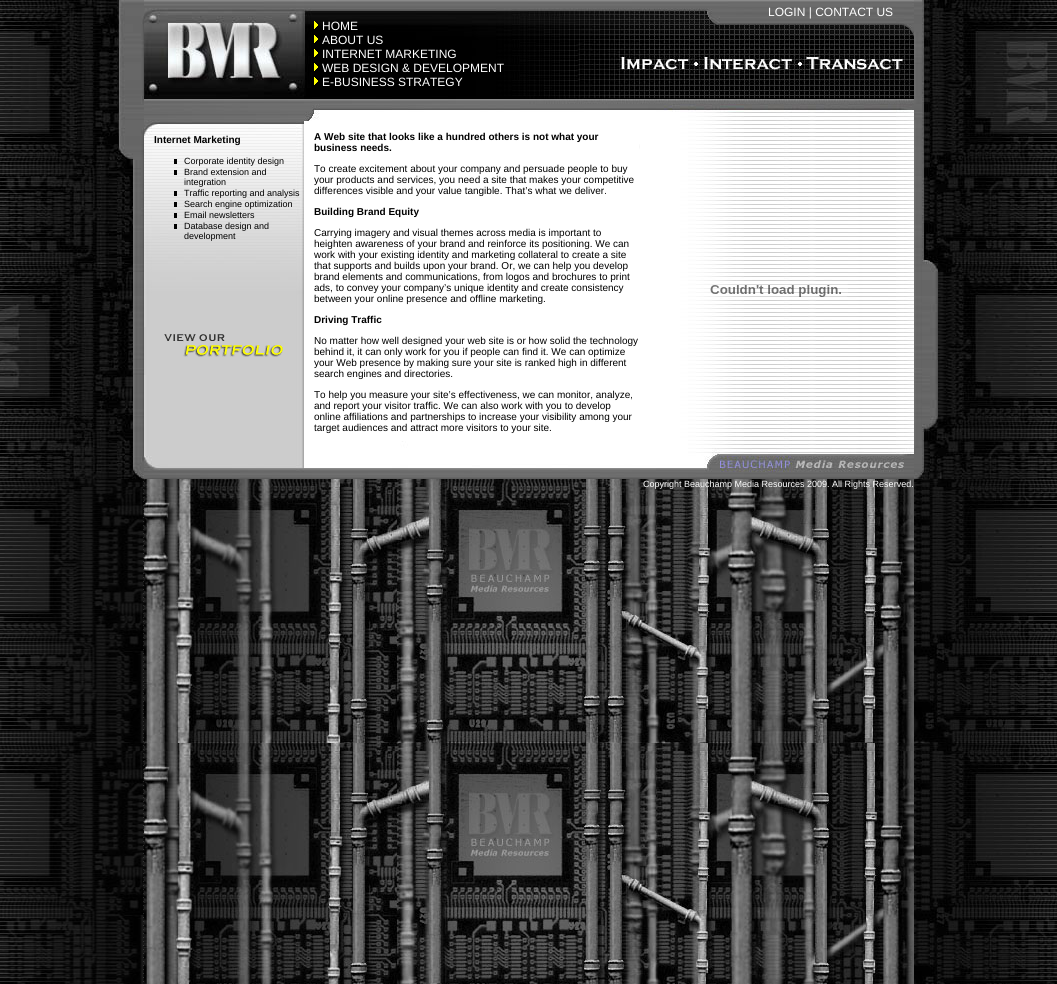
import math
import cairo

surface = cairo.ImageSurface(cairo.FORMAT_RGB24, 1057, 984)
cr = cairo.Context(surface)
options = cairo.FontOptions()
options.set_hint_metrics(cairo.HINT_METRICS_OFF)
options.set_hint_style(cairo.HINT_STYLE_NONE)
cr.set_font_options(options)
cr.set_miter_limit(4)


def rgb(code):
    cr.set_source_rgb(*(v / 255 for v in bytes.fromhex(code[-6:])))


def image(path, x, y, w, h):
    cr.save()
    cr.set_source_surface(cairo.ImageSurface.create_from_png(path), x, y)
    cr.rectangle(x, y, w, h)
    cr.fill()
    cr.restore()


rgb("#ffffff")
cr.paint()
image("img/1.png", 0, 0, 144, 479)
image("img/2.png", 144, 0, 770, 479)
image("img/3.png", 144, 8, 160, 90)
image("img/4.png", 314, 21, 4, 8)
image("img/5.png", 314, 35, 4, 8)
image("img/5.png", 314, 49, 4, 8)
image("img/5.png", 314, 63, 4, 8)
image("img/5.png", 314, 77, 4, 8)
for x, y, w, h, color in [
    (174, 159, 3, 5, "#000000"),
    (174, 170, 3, 5, "#000000"),
    (174, 191, 3, 5, "#000000"),
    (174, 202, 3, 5, "#000000"),
    (174, 213, 3, 5, "#000000"),
    (174, 224, 3, 5, "#000000"),
]:
    rgb(color)
    cr.rectangle(x, y, w, h)
    cr.fill()
image("img/6.png", 144, 327, 139, 48)
rgb("#ffffff")
cr.rectangle(304, 121, 335, 320)
cr.fill()
image("img/7.png", 710, 284, 138, 13)
image("img/8.png", 914, 0, 143, 479)
image("img/9.png", 0, 479, 144, 505)
image("img/10.png", 144, 479, 770, 505)
image("img/11.png", 914, 479, 143, 505)
cr.select_font_face("Liberation Sans")
cr.set_font_size(12)
for x, y, s in [
    (322, 30, "HOME"),
    (322, 44, "ABOUT US"),
    (322, 58, "INTERNET MARKETING"),
    (322, 72, "WEB DESIGN & DEVELOPMENT"),
    (322, 86, "E-BUSINESS STRATEGY"),
    (768, 16, "LOGIN | CONTACT US"),
]:
    cr.move_to(x, y)
    cr.show_text(s)
cr.select_font_face("Liberation Sans", cairo.FONT_SLANT_NORMAL, cairo.FONT_WEIGHT_BOLD)
cr.set_font_size(10)
rgb("#000000")
cr.move_to(154, 143)
cr.show_text("Internet Marketing")
cr.select_font_face("Liberation Sans")
cr.set_font_size(9)
for x, y, s in [
    (184, 164, "Corporate identity design"),
    (184, 175, "Brand extension and"),
    (184, 185, "integration"),
    (184, 196, "Traffic reporting and analysis"),
    (184, 207, "Search engine optimization"),
    (184, 218, "Email newsletters"),
    (184, 229, "Database design and"),
    (184, 239, "development"),
]:
    cr.move_to(x, y)
    cr.show_text(s)
cr.select_font_face("Liberation Sans", cairo.FONT_SLANT_NORMAL, cairo.FONT_WEIGHT_BOLD)
cr.set_font_size(10)
cr.move_to(314, 140)
cr.show_text("A Web site that looks like a hundred others is not what your")
cr.move_to(314, 151)
cr.show_text("business needs.")
cr.select_font_face("Liberation Sans")
for x, y, s in [
    (314, 172, "To create excitement about your company and persuade people to buy"),
    (314, 183, "your products and services, you need a site that makes your competitive"),
    (314, 194, "differences visible and your value tangible. That’s what we deliver."),
]:
    cr.move_to(x, y)
    cr.show_text(s)
cr.select_font_face("Liberation Sans", cairo.FONT_SLANT_NORMAL, cairo.FONT_WEIGHT_BOLD)
cr.move_to(314, 215)
cr.show_text("Building Brand Equity")
cr.select_font_face("Liberation Sans")
for x, y, s in [
    (314, 236, "Carrying imagery and visual themes across media is important to"),
    (314, 247, "heighten awareness of your brand and reinforce its positioning. We can"),
    (314, 258, "work with your existing identity and marketing collateral to create a site"),
    (314, 269, "that supports and builds upon your brand. Or, we can help you develop"),
    (314, 280, "brand elements and communications, from logos and brochures to print"),
    (314, 291, "ads, to convey your company’s unique identity and create consistency"),
    (314, 302, "between your online presence and offline marketing."),
]:
    cr.move_to(x, y)
    cr.show_text(s)
cr.select_font_face("Liberation Sans", cairo.FONT_SLANT_NORMAL, cairo.FONT_WEIGHT_BOLD)
cr.move_to(314, 323)
cr.show_text("Driving Traffic")
cr.select_font_face("Liberation Sans")
for x, y, s in [
    (314, 344, "No matter how well designed your web site is or how solid the technology"),
    (314, 355, "behind it, it can only work for you if people can find it. We can optimize"),
    (314, 366, "your Web presence by making sure your site is ranked high in different"),
    (314, 377, "search engines and directories."),
    (314, 398, "To help you measure your site’s effectiveness, we can monitor, analyze,"),
    (314, 409, "and report your visitor traffic. We can also work with you to develop"),
    (314, 420, "online affiliations and partnerships to increase your visibility among your"),
    (314, 431, "target audiences and attract more visitors to your site."),
]:
    cr.move_to(x, y)
    cr.show_text(s)
cr.set_font_size(9)
rgb("#ffffff")
cr.move_to(643, 487)
cr.show_text("Copyright Beauchamp Media Resources 2009. All Rights Reserved.")
surface.write_to_png("page.png")
